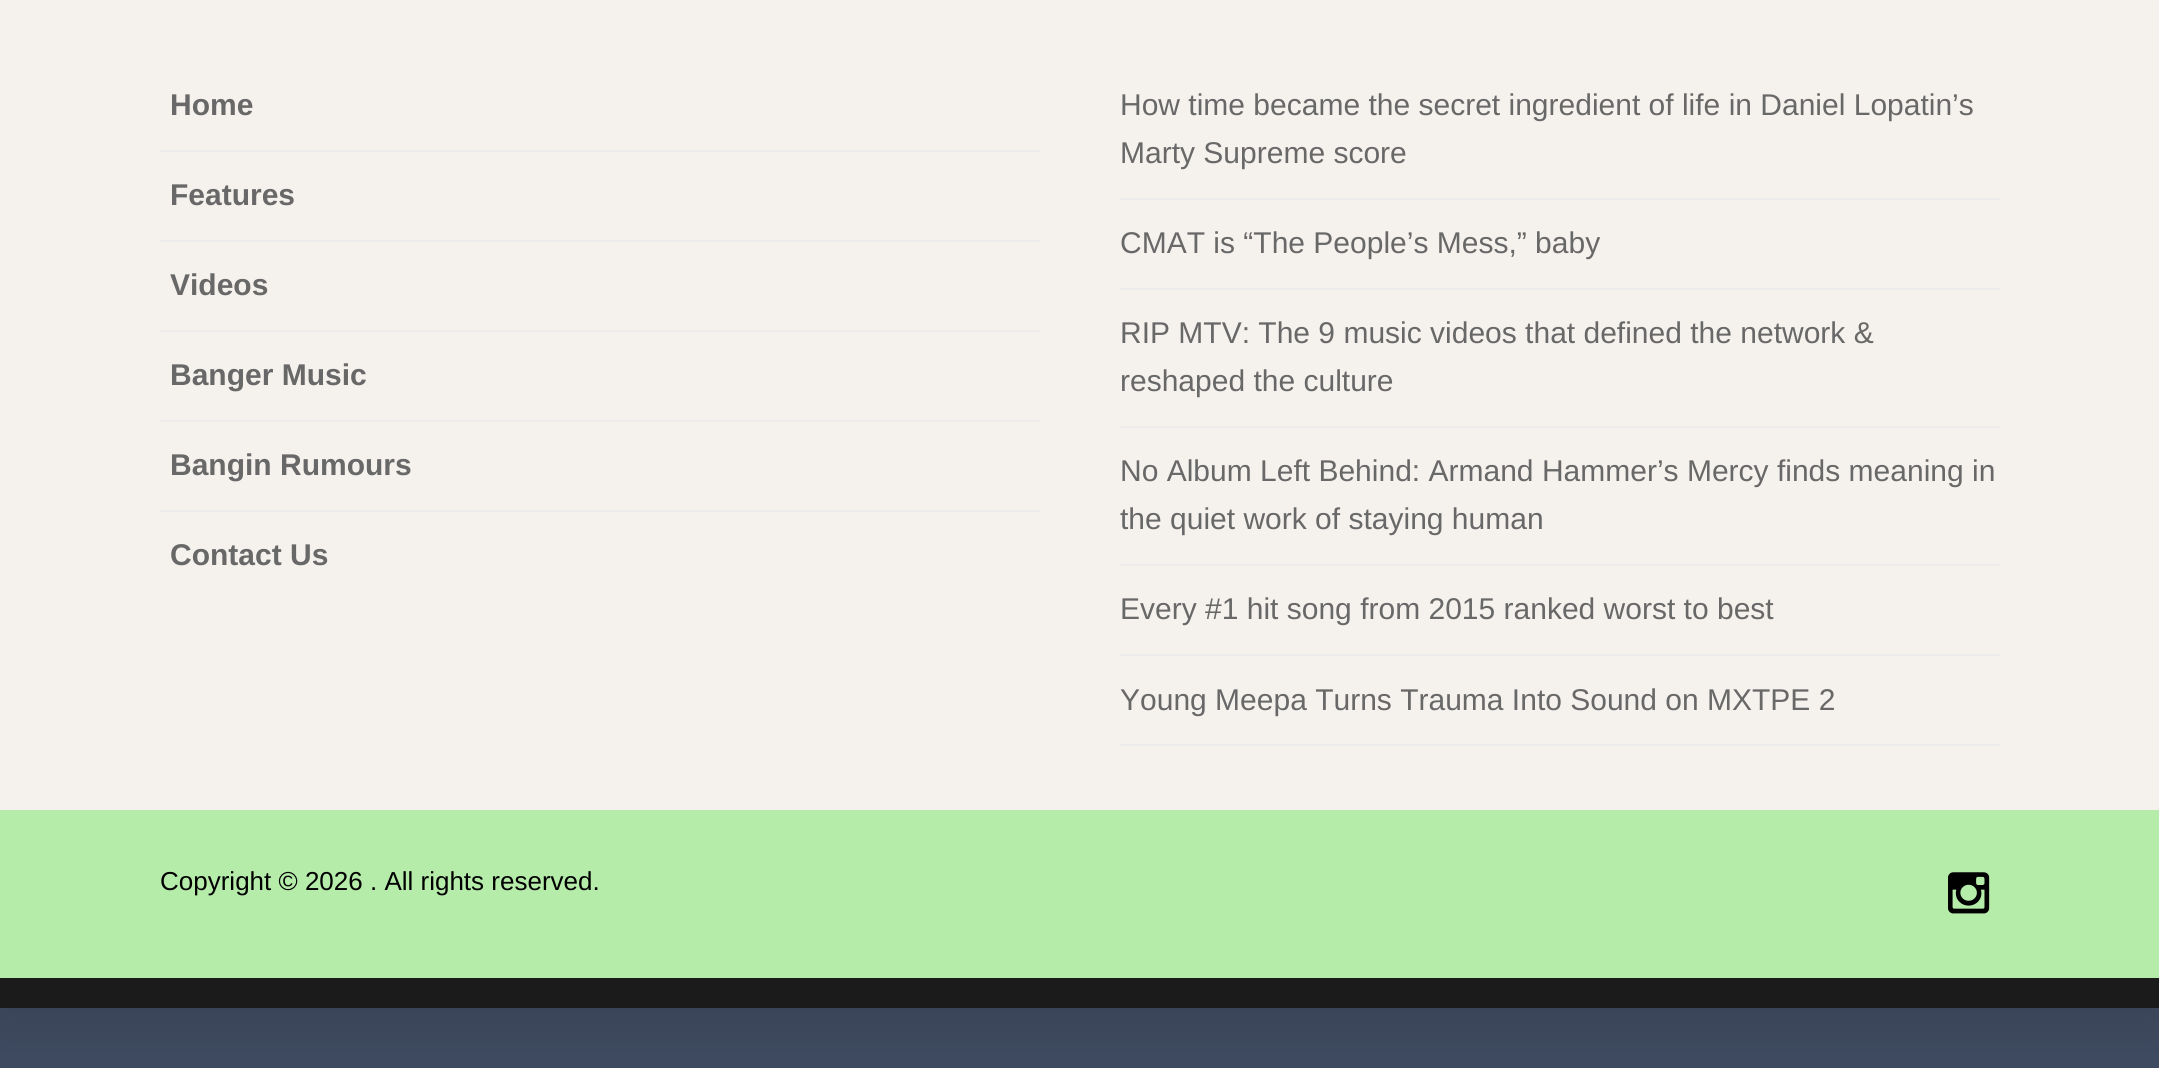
import math
import cairo

surface = cairo.ImageSurface(cairo.FORMAT_RGB24, 2159, 1068)
cr = cairo.Context(surface)
options = cairo.FontOptions()
options.set_hint_metrics(cairo.HINT_METRICS_OFF)
options.set_hint_style(cairo.HINT_STYLE_NONE)
cr.set_font_options(options)
cr.set_miter_limit(4)


def rgb(code):
    cr.set_source_rgb(*(v / 255 for v in bytes.fromhex(code[-6:])))


def rrect(x, y, w, h, r):
    cr.new_sub_path()
    for i, (u, v) in enumerate([(x + w - r, y + h - r), (x + r, y + h - r), (x + r, y + r), (x + w - r, y + r)]):
        cr.arc(u, v, r, i * math.pi / 2, (i + 1) * math.pi / 2)
    cr.close_path()


def soft_shadow(x, y, w, h, r, blur, alpha):
    cr.push_group_with_content(cairo.CONTENT_ALPHA)
    cr.set_operator(cairo.OPERATOR_SOURCE)
    for i in range(15, -16, -2):
        e = blur * i / 6
        if min(w, h) + 2 * e > 0:
            cr.set_source_rgba(0, 0, 0, alpha * math.erfc((i - 1) / 8.5) / 2)
            rrect(x - e, y - e, w + 2 * e, h + 2 * e, max(0, min(r + e + blur * .6, min(w, h) / 2 + e)))
            cr.fill()
    cr.mask(cr.pop_group())


def image(path, x, y, w, h):
    cr.save()
    cr.set_source_surface(cairo.ImageSurface.create_from_png(path), x, y)
    cr.rectangle(x, y, w, h)
    cr.fill()
    cr.restore()


rgb("#3e4a5f")
cr.paint()
rgb("#000000")
soft_shadow(0, -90, 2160, 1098, 0, 30, 0.15)
for x, y, w, h, color in [
    (0, 0, 2159, 810, "#f5f2ed"),
    (160, 150, 880, 2, "#ededed"),
    (160, 240, 880, 2, "#ededed"),
    (160, 330, 880, 2, "#ededed"),
    (160, 420, 880, 2, "#ededed"),
    (160, 510, 880, 2, "#ededed"),
    (1120, 198, 880, 2, "#ececec"),
    (1120, 288, 880, 2, "#ececec"),
    (1120, 426, 880, 2, "#ececec"),
    (1120, 564, 880, 2, "#ececec"),
    (1120, 654, 880, 2, "#ececec"),
    (1120, 744, 880, 2, "#ececec"),
    (0, 810, 2159, 168, "#b6ecaa"),
    (0, 978, 2159, 30, "#1b1b1b"),
]:
    rgb(color)
    cr.rectangle(x, y, w, h)
    cr.fill()
image("img/1.png", 1948, 872, 42, 42)
cr.select_font_face("Liberation Sans", cairo.FONT_SLANT_NORMAL, cairo.FONT_WEIGHT_BOLD)
cr.set_font_size(30)
rgb("#686868")
for x, y, s in [
    (170, 115, "Home"),
    (170, 205, "Features"),
    (170, 295, "Videos"),
    (170, 385, "Banger Music"),
    (170, 475, "Bangin Rumours"),
    (170, 565, "Contact Us"),
]:
    cr.move_to(x, y)
    cr.show_text(s)
cr.select_font_face("Liberation Sans")
for x, y, s in [
    (1120, 115, "How time became the secret ingredient of life in Daniel Lopatin’s"),
    (1120, 163, "Marty Supreme score"),
    (1120, 253, "CMAT is “The People’s Mess,” baby"),
    (1120, 343, "RIP MTV: The 9 music videos that defined the network &"),
    (1120, 391, "reshaped the culture"),
    (1120, 481, "No Album Left Behind: Armand Hammer’s Mercy finds meaning in"),
    (1120, 529, "the quiet work of staying human"),
    (1120, 619, "Every #1 hit song from 2015 ranked worst to best"),
    (1120, 710, "Young Meepa Turns Trauma Into Sound on MXTPE 2"),
]:
    cr.move_to(x, y)
    cr.show_text(s)
cr.set_font_size(26)
rgb("#000000")
cr.move_to(160, 890)
cr.show_text("Copyright © 2026 . All rights reserved.")
surface.write_to_png("page.png")
